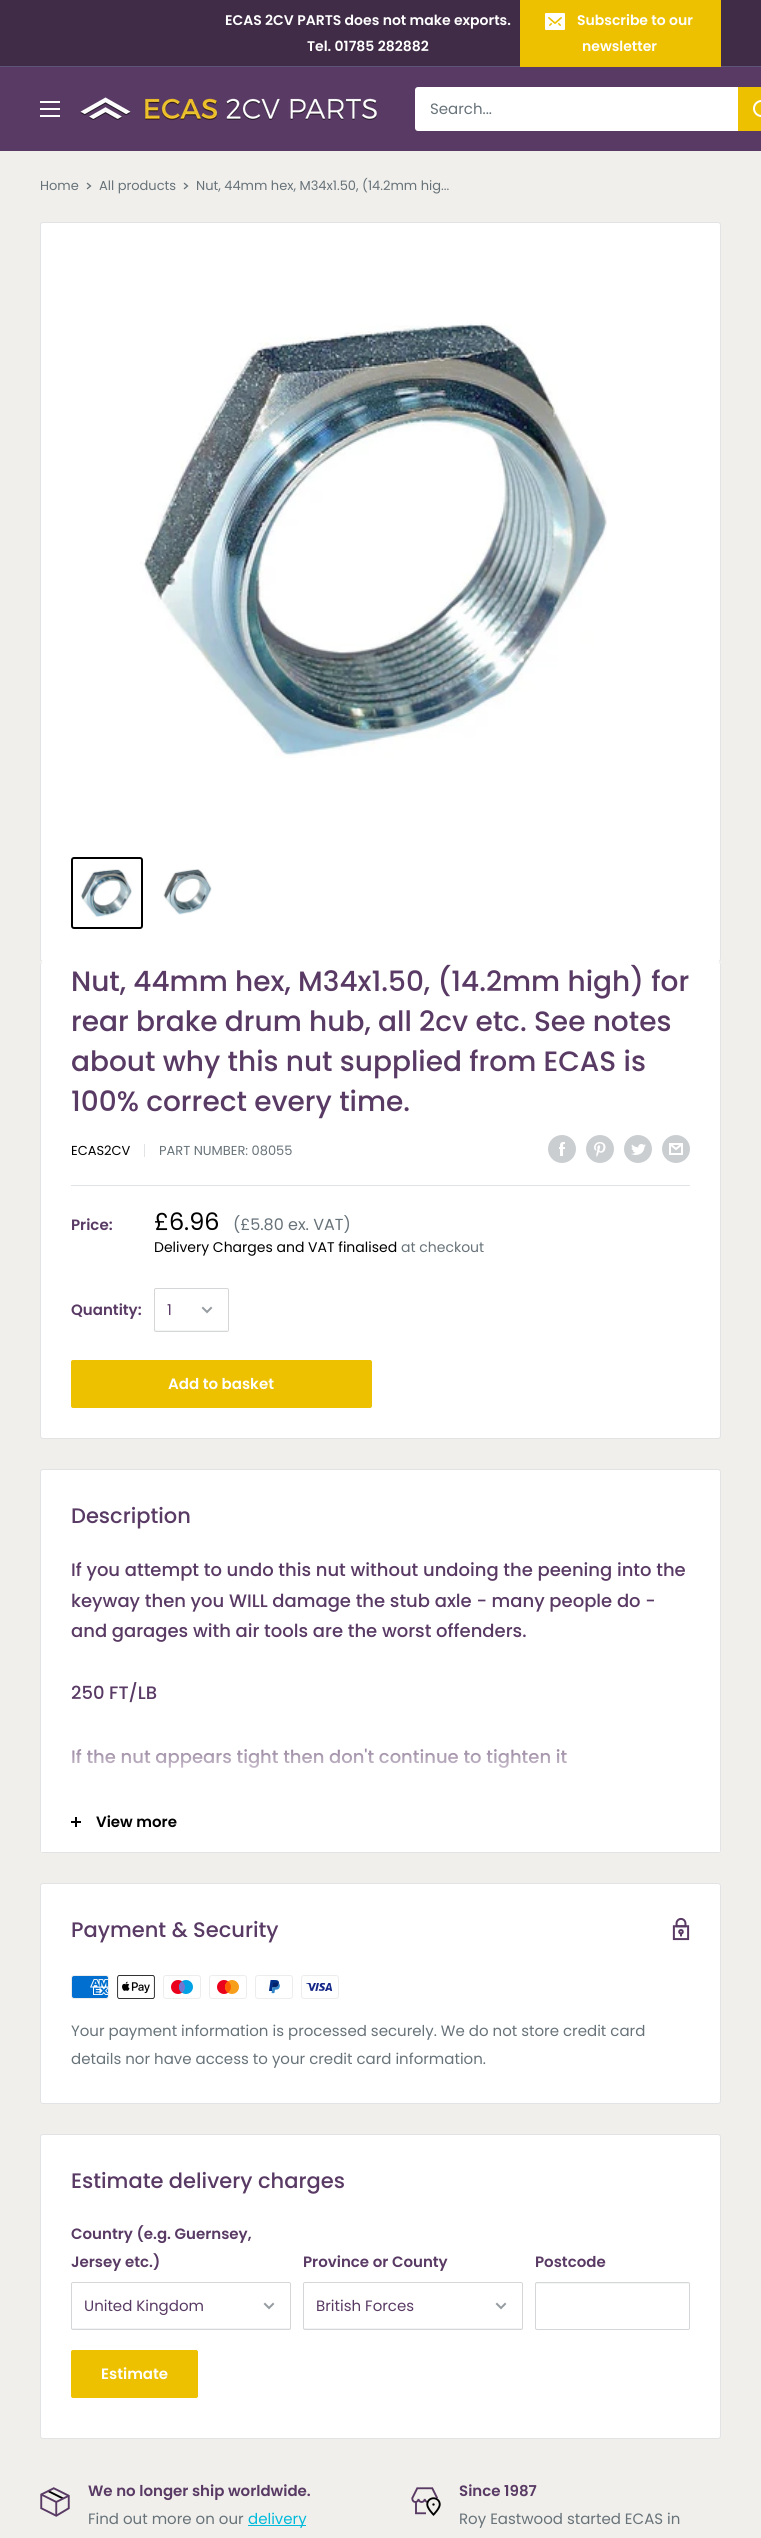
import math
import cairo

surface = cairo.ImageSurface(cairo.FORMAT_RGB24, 761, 2538)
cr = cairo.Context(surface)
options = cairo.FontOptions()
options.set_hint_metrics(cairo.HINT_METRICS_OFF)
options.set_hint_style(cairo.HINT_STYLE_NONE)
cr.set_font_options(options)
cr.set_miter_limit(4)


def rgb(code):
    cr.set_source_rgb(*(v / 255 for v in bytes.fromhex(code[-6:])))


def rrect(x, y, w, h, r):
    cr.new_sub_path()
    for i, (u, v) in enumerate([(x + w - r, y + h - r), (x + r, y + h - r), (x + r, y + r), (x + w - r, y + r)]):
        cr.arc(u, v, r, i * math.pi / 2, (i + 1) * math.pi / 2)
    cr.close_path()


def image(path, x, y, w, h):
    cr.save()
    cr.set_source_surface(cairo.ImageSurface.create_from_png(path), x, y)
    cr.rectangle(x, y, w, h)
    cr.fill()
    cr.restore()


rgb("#f0efeb")
cr.paint()
for x, y, w, h, color in [
    (0, 0, 761, 66, "#402c47"),
    (0, 66, 761, 1, "#5e5379"),
    (520, 0, 201, 67, "#edc100"),
]:
    rgb(color)
    cr.rectangle(x, y, w, h)
    cr.fill()
image("img/1.png", 545, 13, 20, 17)
rgb("#593a64")
cr.rectangle(0, 67, 761, 84)
cr.fill()
image("img/2.png", 40, 101, 20, 16)
image("img/3.png", 80, 97, 297, 24)
rgb("#ffffff")
rrect(415, 87, 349, 44, 3)
cr.fill()
rgb("#edc100")
cr.rectangle(738, 87, 23, 44)
cr.fill()
cr.arc(761.5, 108.5, 7.5, 0, 2 * math.pi)
rgb("#ffffff")
cr.stroke()
cr.new_path()
cr.move_to(87.5, 183.5)
cr.line_to(90.5, 186)
cr.line_to(87.5, 188.5)
rgb("#677279")
cr.set_line_width(1.3)
cr.set_line_cap(cairo.LINE_CAP_SQUARE)
cr.stroke()
cr.new_path()
cr.move_to(184.5, 183.5)
cr.line_to(187.5, 186)
cr.line_to(184.5, 188.5)
cr.stroke()
rgb("#ffffff")
rrect(40.5, 222.5, 680, 739, 2.5)
cr.fill_preserve()
rgb("#e1e3e4")
cr.set_line_width(1)
cr.set_line_cap(cairo.LINE_CAP_BUTT)
cr.stroke()
image("img/4.png", 140, 323, 467, 435)
rrect(72, 858, 70, 70, 2)
rgb("#000000")
cr.set_line_width(2)
cr.stroke()
image("img/5.png", 80, 869, 52, 48)
image("img/6.png", 163, 869, 49, 46)
rgb("#ffffff")
cr.new_path()
cr.move_to(43, 961)
cr.curve_to(41, 961, 40, 963, 40, 965)
cr.curve_to(40, 963, 41, 962, 43, 962)
cr.line_to(718, 962)
cr.curve_to(720, 962, 721, 963, 721, 965)
cr.curve_to(721, 963, 720, 961, 718, 961)
cr.close_path()
cr.fill()
rrect(40, 962, 681, 477, 3)
cr.fill()
rgb("#e1e3e4")
cr.set_fill_rule(cairo.FILL_RULE_EVEN_ODD)
cr.new_path()
cr.move_to(43, 962)
cr.line_to(718, 962)
cr.curve_to(720, 962, 721, 963, 721, 965)
cr.line_to(721, 1436)
cr.curve_to(721, 1438, 720, 1439, 718, 1439)
cr.line_to(43, 1439)
cr.curve_to(41, 1439, 40, 1438, 40, 1436)
cr.line_to(40, 965)
cr.curve_to(40, 963, 41, 962, 43, 962)
cr.close_path()
cr.move_to(43, 962)
cr.line_to(718, 962)
cr.curve_to(719, 962, 720, 963, 720, 965)
cr.line_to(720, 1436)
cr.curve_to(720, 1437, 719, 1438, 718, 1438)
cr.line_to(43, 1438)
cr.curve_to(42, 1438, 41, 1437, 41, 1436)
cr.line_to(41, 965)
cr.curve_to(41, 963, 42, 962, 43, 962)
cr.close_path()
cr.fill()
cr.rectangle(144, 1144, 1, 13)
cr.fill()
image("img/7.png", 548, 1135, 28, 28)
image("img/8.png", 586, 1135, 28, 28)
image("img/9.png", 624, 1135, 28, 28)
image("img/10.png", 662, 1135, 28, 28)
cr.rectangle(71, 1185, 619, 1)
cr.fill()
rgb("#f2f3f3")
cr.set_fill_rule(cairo.FILL_RULE_WINDING)
cr.new_path()
cr.move_to(155, 1329)
cr.curve_to(155, 1330, 155, 1331, 156, 1331)
cr.line_to(227, 1331)
cr.line_to(228, 1329)
cr.line_to(227, 1330)
cr.line_to(161, 1330)
cr.curve_to(159, 1330, 156, 1331, 155, 1329)
cr.close_path()
cr.fill()
rrect(154.5, 1288.5, 74, 43, 1.5)
rgb("#d4d6d8")
cr.set_line_width(1)
cr.stroke()
cr.new_path()
cr.move_to(211, 1308)
cr.line_to(207, 1312)
cr.line_to(203, 1308)
rgb("#959ca1")
cr.set_line_width(2)
cr.set_line_cap(cairo.LINE_CAP_SQUARE)
cr.stroke()
rgb("#edc100")
rrect(71, 1360, 301, 48, 2)
cr.fill()
rgb("#ffffff")
rrect(40.5, 1469.5, 680, 383, 2.5)
cr.fill_preserve()
rgb("#e1e3e4")
cr.set_line_width(1)
cr.set_line_cap(cairo.LINE_CAP_BUTT)
cr.stroke()
for x, y, w, h, color in [
    (41, 1850, 679, 2, "#ffffff"),
    (75, 1817, 2, 10, "#000000"),
    (71, 1821, 10, 2, "#000000"),
]:
    rgb(color)
    cr.rectangle(x, y, w, h)
    cr.fill()
rgb("#ffffff")
rrect(40.5, 1883.5, 680, 220, 2.5)
cr.fill_preserve()
rgb("#e1e3e4")
cr.stroke()
image("img/11.png", 672, 1917, 18, 24)
image("img/12.png", 71, 1975, 38, 24)
image("img/13.png", 117, 1975, 38, 24)
image("img/14.png", 163, 1975, 38, 24)
image("img/15.png", 209, 1975, 38, 24)
image("img/16.png", 255, 1975, 38, 24)
image("img/17.png", 301, 1975, 38, 24)
rgb("#ffffff")
rrect(40.5, 2134.5, 680, 304, 2.5)
cr.fill_preserve()
rgb("#e1e3e4")
cr.stroke()
rgb("#f2f3f3")
cr.new_path()
cr.move_to(72, 2327)
cr.curve_to(72, 2328, 72, 2329, 73, 2329)
cr.line_to(289, 2329)
cr.line_to(290, 2329)
cr.line_to(290, 2327)
cr.curve_to(290, 2328, 290, 2328, 289, 2328)
cr.line_to(72, 2328)
cr.close_path()
cr.fill()
rrect(71.5, 2282.5, 219, 47, 1.5)
rgb("#d4d6d8")
cr.stroke()
cr.new_path()
cr.move_to(273, 2304)
cr.line_to(269, 2308)
cr.line_to(265, 2304)
rgb("#959ca1")
cr.set_line_width(2)
cr.set_line_cap(cairo.LINE_CAP_SQUARE)
cr.stroke()
rgb("#f2f3f3")
cr.new_path()
cr.move_to(304, 2327)
cr.line_to(304, 2329)
cr.line_to(305, 2329)
cr.line_to(521, 2329)
cr.curve_to(522, 2329, 522, 2328, 522, 2327)
cr.curve_to(522, 2328, 522, 2328, 521, 2328)
cr.line_to(304, 2328)
cr.close_path()
cr.fill()
rrect(303.5, 2282.5, 219, 47, 1.5)
rgb("#d4d6d8")
cr.set_line_width(1)
cr.set_line_cap(cairo.LINE_CAP_BUTT)
cr.stroke()
cr.new_path()
cr.move_to(505, 2304)
cr.line_to(501, 2308)
cr.line_to(497, 2304)
rgb("#959ca1")
cr.set_line_width(2)
cr.set_line_cap(cairo.LINE_CAP_SQUARE)
cr.stroke()
rgb("#f4f5f5")
cr.new_path()
cr.move_to(537, 2284)
cr.line_to(688, 2284)
cr.curve_to(689, 2284, 689, 2284, 689, 2285)
cr.curve_to(689, 2284, 689, 2283, 688, 2283)
cr.line_to(536, 2283)
cr.line_to(536, 2285)
cr.curve_to(536, 2284, 536, 2284, 537, 2284)
cr.close_path()
cr.fill()
rrect(535.5, 2282.5, 154, 47, 1.5)
rgb("#d4d6d8")
cr.set_line_width(1)
cr.set_line_cap(cairo.LINE_CAP_BUTT)
cr.stroke()
rgb("#edc100")
rrect(71, 2350, 127, 48, 2)
cr.fill()
image("img/18.png", 40, 2487, 30, 30)
rgb("#00badb")
cr.rectangle(248, 2525, 58, 1)
cr.fill()
image("img/19.png", 411, 2487, 30, 29)
cr.select_font_face("Poppins SemiBold")
cr.set_font_size(14)
rgb("#ffffff")
for x, y, s in [
    (225, 25, "ECAS 2CV PARTS does not make exports."),
    (307, 51, "Tel. 01785 282882"),
    (577, 25, "Subscribe to our"),
    (582, 51, "newsletter"),
]:
    cr.move_to(x, y)
    cr.show_text(s)
cr.select_font_face("Poppins")
cr.set_font_size(15)
rgb("#677279")
cr.move_to(430, 114)
cr.show_text("Search...")
cr.set_font_size(13)
for x, y, s in [
    (40, 190, "Home"),
    (99, 190, "All products"),
    (196, 190, "Nut, 44mm hex, M34x1.50, (14.2mm hig..."),
]:
    cr.move_to(x, y)
    cr.show_text(s)
cr.select_font_face("Poppins Medium")
cr.set_font_size(28)
rgb("#593a64")
for x, y, s in [
    (71, 991, "Nut, 44mm hex, M34x1.50, (14.2mm high) for"),
    (71, 1031, "rear brake drum hub, all 2cv etc. See notes"),
    (71, 1071, "about why this nut supplied from ECAS is"),
    (71, 1111, "100% correct every time."),
]:
    cr.move_to(x, y)
    cr.show_text(s)
cr.select_font_face("Poppins")
cr.set_font_size(13)
rgb("#000000")
cr.move_to(71, 1155)
cr.show_text("ECAS2CV")
rgb("#677279")
cr.move_to(159, 1155)
cr.show_text("PART NUMBER: 08055")
cr.select_font_face("Poppins SemiBold")
cr.set_font_size(15)
rgb("#593a64")
cr.move_to(71, 1230)
cr.show_text("Price:")
cr.select_font_face("Poppins")
cr.set_font_size(24)
rgb("#000000")
cr.move_to(154, 1230)
cr.show_text("£6.96")
cr.set_font_size(16)
rgb("#677279")
cr.move_to(233, 1230)
cr.show_text("(£5.80 ex. VAT)")
cr.set_font_size(14)
rgb("#000000")
cr.move_to(154, 1252)
cr.show_text("Delivery Charges and VAT finalised")
rgb("#677279")
cr.move_to(401, 1252)
cr.show_text("at checkout")
cr.select_font_face("Poppins SemiBold")
cr.set_font_size(15)
rgb("#593a64")
cr.move_to(71, 1315)
cr.show_text("Quantity:")
cr.select_font_face("Poppins")
cr.move_to(167, 1315)
cr.show_text("1")
cr.select_font_face("Poppins SemiBold")
rgb("#ffffff")
cr.move_to(168, 1389)
cr.show_text("Add to basket")
cr.select_font_face("Poppins Medium")
cr.set_font_size(21)
rgb("#593a64")
cr.move_to(71, 1523)
cr.show_text("Description")
cr.set_font_size(18)
for x, y, s in [
    (71, 1576, "If you attempt to undo this nut without undoing the peening into the"),
    (71, 1607, "keyway then you WILL damage the stub axle - many people do -"),
    (71, 1637, "and garages with air tools are the worst offenders."),
    (71, 1699, "250 FT/LB"),
    (71, 1763, "If the nut appears tight then don't continue to tighten it"),
]:
    cr.move_to(x, y)
    cr.show_text(s)
gradient = cairo.LinearGradient(381, 1742, 381, 1792)
gradient.add_color_stop_rgba(0, 1, 1, 1, 0)
gradient.add_color_stop_rgba(0.15, 1, 1, 1, 0.4)
gradient.add_color_stop_rgba(1, 1, 1, 1, 1)
cr.set_source(gradient)
cr.rectangle(72, 1748, 495, 20)
cr.fill()
cr.select_font_face("Poppins SemiBold")
cr.set_font_size(15)
rgb("#000000")
cr.move_to(96, 1827)
cr.show_text("View more")
cr.select_font_face("Poppins Medium")
cr.set_font_size(21)
rgb("#593a64")
cr.move_to(71, 1937)
cr.show_text("Payment & Security")
cr.select_font_face("Poppins")
cr.set_font_size(15)
rgb("#677279")
cr.move_to(71, 2036)
cr.show_text("Your payment information is processed securely. We do not store credit card")
cr.move_to(71, 2064)
cr.show_text("details nor have access to your credit card information.")
cr.select_font_face("Poppins Medium")
cr.set_font_size(21)
rgb("#593a64")
cr.move_to(71, 2188)
cr.show_text("Estimate delivery charges")
cr.select_font_face("Poppins SemiBold")
cr.set_font_size(15)
cr.move_to(71, 2239)
cr.show_text("Country (e.g. Guernsey,")
cr.move_to(71, 2267)
cr.show_text("Jersey etc.)")
cr.select_font_face("Poppins")
cr.move_to(84, 2311)
cr.show_text("United Kingdom")
cr.select_font_face("Poppins SemiBold")
cr.move_to(303, 2267)
cr.show_text("Province or County")
cr.select_font_face("Poppins")
cr.move_to(316, 2311)
cr.show_text("British Forces")
cr.select_font_face("Poppins SemiBold")
cr.move_to(535, 2267)
cr.show_text("Postcode")
rgb("#ffffff")
cr.move_to(101, 2379)
cr.show_text("Estimate")
rgb("#593a64")
cr.move_to(88, 2496)
cr.show_text("We no longer ship worldwide.")
cr.select_font_face("Poppins")
rgb("#677279")
cr.move_to(88, 2524)
cr.show_text("Find out more on our")
rgb("#00badb")
cr.move_to(248, 2524)
cr.show_text("delivery")
cr.select_font_face("Poppins SemiBold")
rgb("#593a64")
cr.move_to(459, 2496)
cr.show_text("Since 1987")
cr.select_font_face("Poppins")
rgb("#677279")
cr.move_to(459, 2524)
cr.show_text("Roy Eastwood started ECAS in")
surface.write_to_png("page.png")
